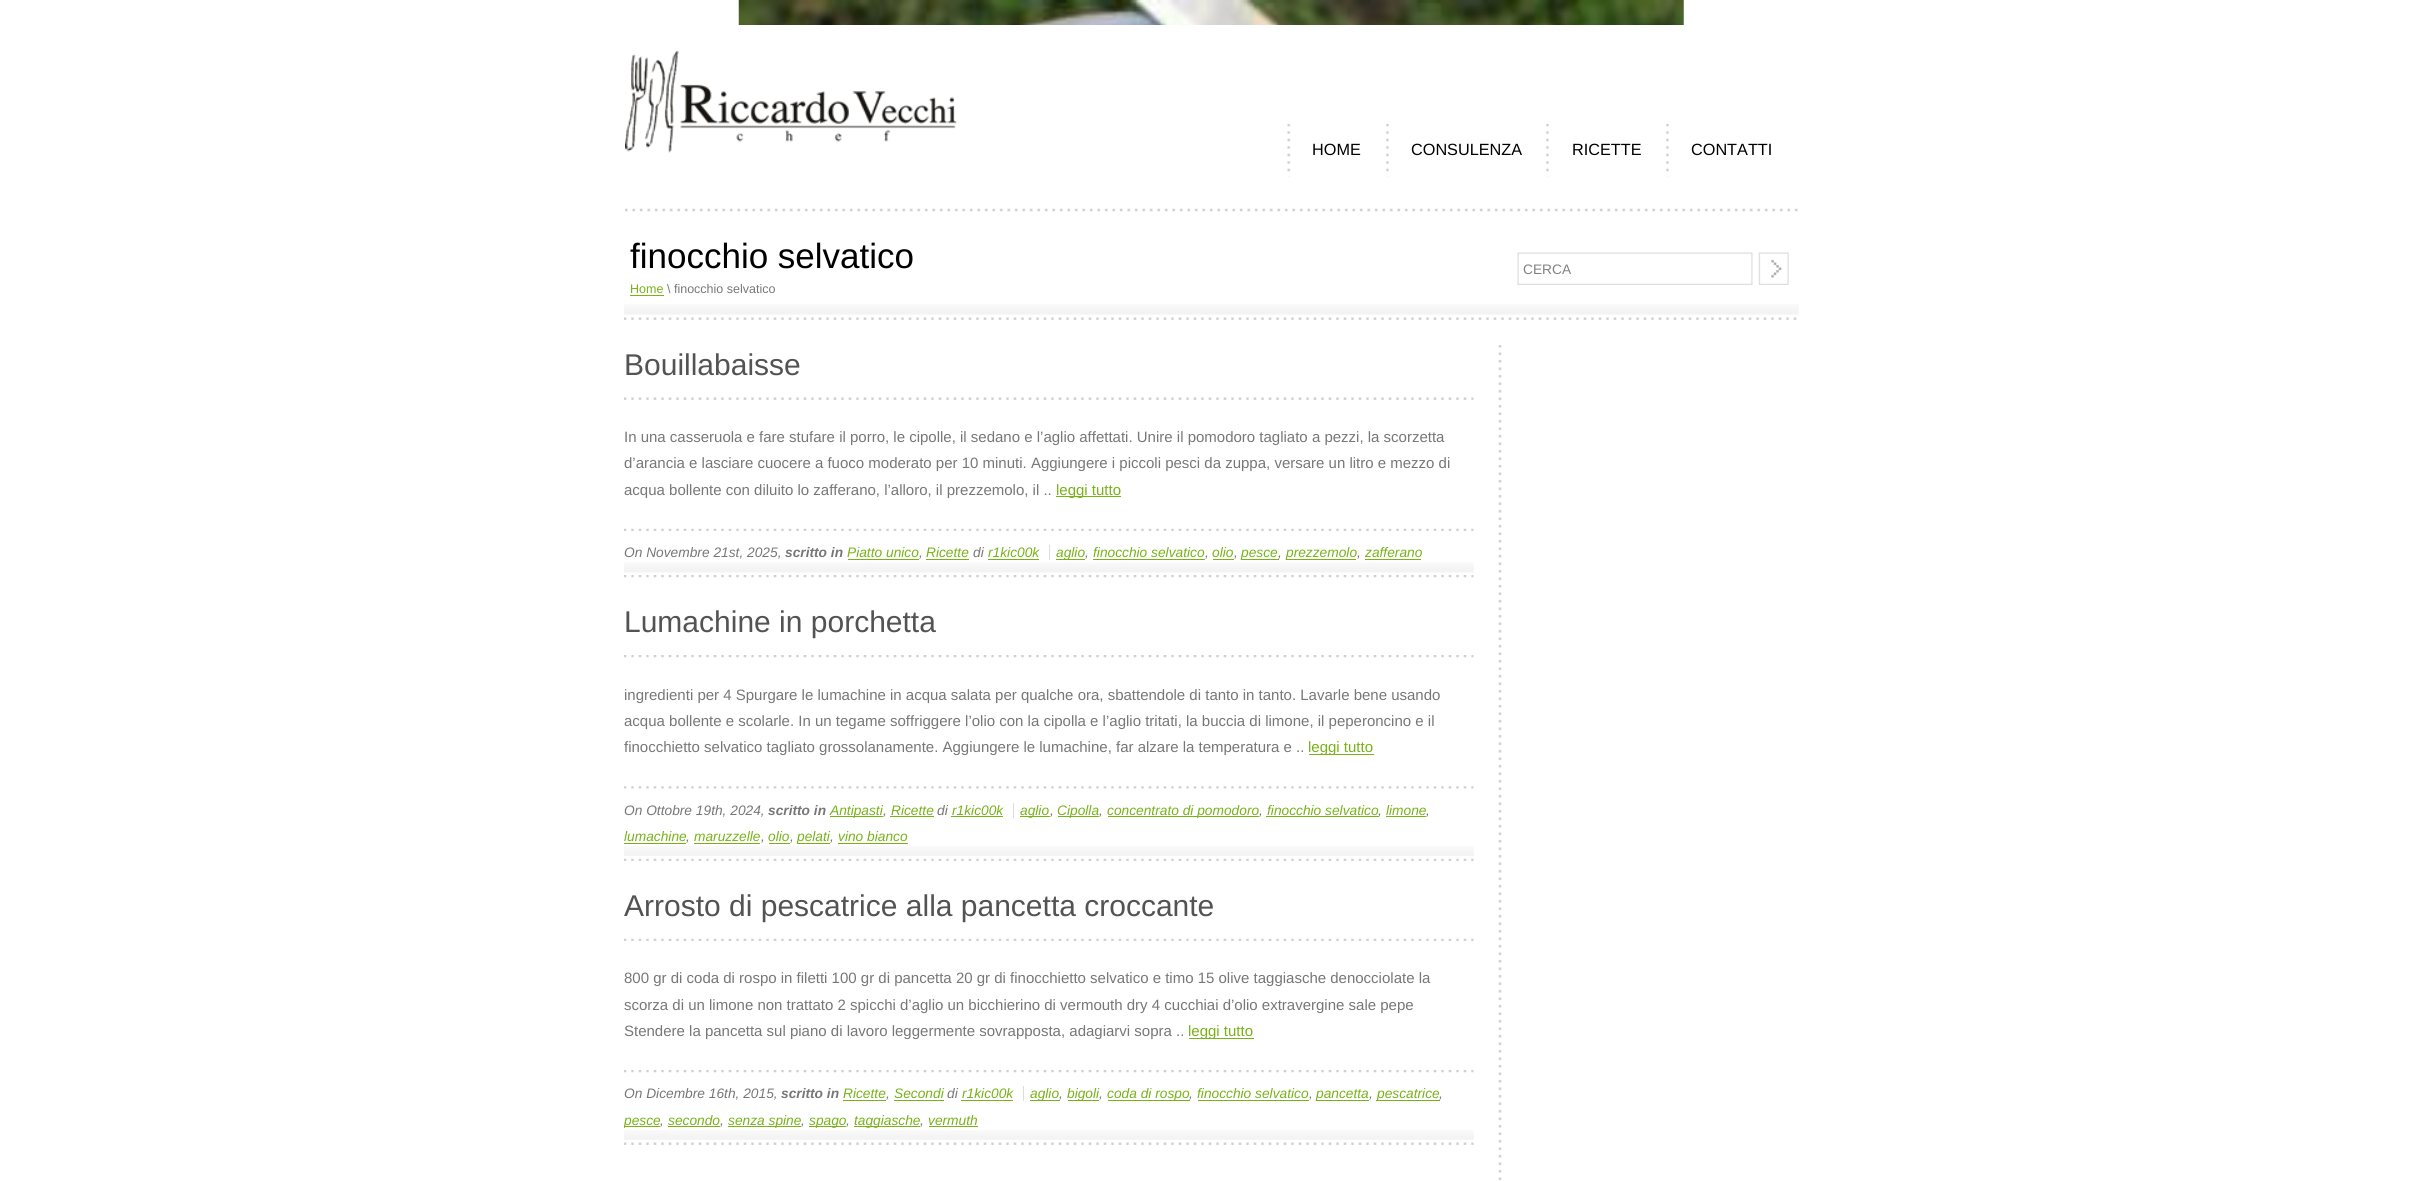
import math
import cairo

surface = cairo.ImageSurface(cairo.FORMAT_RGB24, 2422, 1181)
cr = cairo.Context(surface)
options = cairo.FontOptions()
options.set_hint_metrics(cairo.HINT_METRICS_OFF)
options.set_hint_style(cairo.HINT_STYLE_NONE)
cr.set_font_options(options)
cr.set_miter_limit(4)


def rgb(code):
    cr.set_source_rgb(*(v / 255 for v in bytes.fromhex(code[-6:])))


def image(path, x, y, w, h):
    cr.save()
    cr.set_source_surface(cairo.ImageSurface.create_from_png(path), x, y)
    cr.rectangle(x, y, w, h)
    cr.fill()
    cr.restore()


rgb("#ffffff")
cr.paint()
image("img/1.png", 738, 0, 946, 25)
image("img/2.png", 625, 208, 1173, 4)
image("img/3.png", 625, 51, 332, 102)
image("img/4.png", 1287, 124, 4, 53)
image("img/5.png", 1386, 124, 3, 53)
image("img/6.png", 1546, 124, 3, 53)
image("img/6.png", 1666, 124, 3, 53)
image("img/7.png", 624, 304, 1175, 11)
rgb("#78b218")
cr.rectangle(630, 295, 34, 1)
cr.fill()
image("img/8.png", 1517, 252, 272, 33)
image("img/9.png", 624, 317, 1173, 3)
image("img/10.png", 1498, 345, 4, 836)
image("img/11.png", 624, 397, 850, 3)
cr.rectangle(1056, 496, 65, 1)
cr.fill()
image("img/12.png", 624, 528, 850, 3)
image("img/13.png", 624, 562, 850, 11)
for x, y, w, h, color in [
    (848, 559, 71, 1, "#78b218"),
    (926, 559, 43, 1, "#78b218"),
    (988, 559, 51, 1, "#78b218"),
    (1049, 545, 1, 15, "#dddddd"),
    (1056, 559, 29, 1, "#78b218"),
    (1093, 559, 112, 1, "#78b218"),
    (1213, 559, 21, 1, "#78b218"),
    (1241, 559, 38, 1, "#78b218"),
    (1286, 559, 70, 1, "#78b218"),
    (1365, 559, 56, 1, "#78b218"),
]:
    rgb(color)
    cr.rectangle(x, y, w, h)
    cr.fill()
image("img/14.png", 624, 575, 850, 3)
image("img/14.png", 624, 655, 850, 3)
cr.rectangle(1309, 754, 65, 1)
cr.fill()
image("img/15.png", 624, 786, 850, 3)
image("img/16.png", 624, 846, 850, 10)
for x, y, w, h, color in [
    (830, 816, 53, 1, "#78b218"),
    (890, 816, 44, 1, "#78b218"),
    (951, 816, 52, 1, "#78b218"),
    (1013, 803, 1, 15, "#dddddd"),
    (1020, 816, 30, 1, "#78b218"),
    (1058, 816, 41, 1, "#78b218"),
    (1108, 816, 151, 1, "#78b218"),
    (1266, 816, 113, 1, "#78b218"),
    (1386, 816, 40, 1, "#78b218"),
    (624, 843, 62, 1, "#78b218"),
    (694, 843, 66, 1, "#78b218"),
    (769, 843, 21, 1, "#78b218"),
    (798, 843, 32, 1, "#78b218"),
    (838, 843, 70, 1, "#78b218"),
]:
    rgb(color)
    cr.rectangle(x, y, w, h)
    cr.fill()
image("img/12.png", 624, 858, 850, 3)
image("img/12.png", 624, 938, 850, 3)
cr.rectangle(1189, 1038, 65, 1)
cr.fill()
image("img/14.png", 624, 1070, 850, 3)
image("img/17.png", 624, 1130, 850, 10)
for x, y, w, h, color in [
    (843, 1100, 43, 1, "#78b218"),
    (894, 1100, 50, 1, "#78b218"),
    (961, 1100, 52, 1, "#78b218"),
    (1023, 1086, 1, 15, "#dddddd"),
    (1030, 1100, 30, 1, "#78b218"),
    (1068, 1100, 31, 1, "#78b218"),
    (1108, 1100, 82, 1, "#78b218"),
    (1198, 1100, 111, 1, "#78b218"),
    (1316, 1100, 53, 1, "#78b218"),
    (1376, 1100, 64, 1, "#78b218"),
    (624, 1126, 36, 1, "#78b218"),
    (668, 1126, 52, 1, "#78b218"),
    (728, 1126, 73, 1, "#78b218"),
    (809, 1126, 37, 1, "#78b218"),
    (854, 1126, 66, 1, "#78b218"),
    (929, 1126, 49, 1, "#78b218"),
]:
    rgb(color)
    cr.rectangle(x, y, w, h)
    cr.fill()
image("img/11.png", 624, 1142, 850, 3)
cr.select_font_face("Liberation Sans")
cr.set_font_size(16.25)
rgb("#000000")
for x, y, s in [
    (1312, 155, "HOME"),
    (1411, 155, "CONSULENZA"),
    (1572, 155, "RICETTE"),
    (1691, 155, "CONTATTI"),
]:
    cr.move_to(x, y)
    cr.show_text(s)
cr.set_font_size(35)
cr.move_to(630, 268)
cr.show_text("finocchio selvatico")
cr.set_font_size(12.5)
rgb("#78b218")
cr.move_to(630, 293)
cr.show_text("Home")
rgb("#777777")
cr.move_to(667, 293)
cr.show_text("\\ finocchio selvatico")
cr.set_font_size(13.75)
rgb("#818181")
cr.move_to(1523, 274)
cr.show_text("CERCA")
cr.set_font_size(30)
rgb("#535353")
cr.move_to(624, 375)
cr.show_text("Bouillabaisse")
cr.set_font_size(15)
rgb("#777777")
for x, y, s in [
    (624, 442, "In una casseruola e fare stufare il porro, le cipolle, il sedano e l’aglio affettati. Unire il pomodoro tagliato a pezzi, la scorzetta"),
    (624, 468, "d’arancia e lasciare cuocere a fuoco moderato per 10 minuti. Aggiungere i piccoli pesci da zuppa, versare un litro e mezzo di"),
    (624, 495, "acqua bollente con diluito lo zafferano, l’alloro, il prezzemolo, il .."),
]:
    cr.move_to(x, y)
    cr.show_text(s)
rgb("#78b218")
cr.move_to(1056, 495)
cr.show_text("leggi tutto")
cr.select_font_face("Liberation Sans", cairo.FONT_SLANT_ITALIC)
cr.set_font_size(13.75)
rgb("#777777")
cr.move_to(624, 557)
cr.show_text("On Novembre 21st, 2025,")
cr.select_font_face("Liberation Sans", cairo.FONT_SLANT_ITALIC, cairo.FONT_WEIGHT_BOLD)
cr.move_to(785, 557)
cr.show_text("scritto in")
cr.select_font_face("Liberation Sans", cairo.FONT_SLANT_ITALIC)
rgb("#78b218")
cr.move_to(847, 557)
cr.show_text("Piatto unico")
rgb("#777777")
cr.move_to(919, 557)
cr.show_text(",")
rgb("#78b218")
cr.move_to(926, 557)
cr.show_text("Ricette")
rgb("#777777")
cr.move_to(973, 557)
cr.show_text("di")
rgb("#78b218")
cr.move_to(988, 557)
cr.show_text("r1kic00k")
cr.move_to(1056, 557)
cr.show_text("aglio")
rgb("#777777")
cr.move_to(1085, 557)
cr.show_text(",")
rgb("#78b218")
cr.move_to(1093, 557)
cr.show_text("finocchio selvatico")
rgb("#777777")
cr.move_to(1205, 557)
cr.show_text(",")
rgb("#78b218")
cr.move_to(1212, 557)
cr.show_text("olio")
rgb("#777777")
cr.move_to(1234, 557)
cr.show_text(",")
rgb("#78b218")
cr.move_to(1241, 557)
cr.show_text("pesce")
rgb("#777777")
cr.move_to(1278, 557)
cr.show_text(",")
rgb("#78b218")
cr.move_to(1286, 557)
cr.show_text("prezzemolo")
rgb("#777777")
cr.move_to(1357, 557)
cr.show_text(",")
rgb("#78b218")
cr.move_to(1365, 557)
cr.show_text("zafferano")
cr.select_font_face("Liberation Sans")
cr.set_font_size(30)
rgb("#535353")
cr.move_to(624, 632)
cr.show_text("Lumachine in porchetta")
cr.set_font_size(15)
rgb("#777777")
for x, y, s in [
    (624, 700, "ingredienti per 4 Spurgare le lumachine in acqua salata per qualche ora, sbattendole di tanto in tanto. Lavarle bene usando"),
    (624, 726, "acqua bollente e scolarle. In un tegame soffriggere l’olio con la cipolla e l’aglio tritati, la buccia di limone, il peperoncino e il"),
    (624, 752, "finocchietto selvatico tagliato grossolanamente. Aggiungere le lumachine, far alzare la temperatura e .."),
]:
    cr.move_to(x, y)
    cr.show_text(s)
rgb("#78b218")
cr.move_to(1308, 752)
cr.show_text("leggi tutto")
cr.select_font_face("Liberation Sans", cairo.FONT_SLANT_ITALIC)
cr.set_font_size(13.75)
rgb("#777777")
cr.move_to(624, 815)
cr.show_text("On Ottobre 19th, 2024,")
cr.select_font_face("Liberation Sans", cairo.FONT_SLANT_ITALIC, cairo.FONT_WEIGHT_BOLD)
cr.move_to(768, 815)
cr.show_text("scritto in")
cr.select_font_face("Liberation Sans", cairo.FONT_SLANT_ITALIC)
rgb("#78b218")
cr.move_to(830, 815)
cr.show_text("Antipasti")
rgb("#777777")
cr.move_to(883, 815)
cr.show_text(",")
rgb("#78b218")
cr.move_to(891, 815)
cr.show_text("Ricette")
rgb("#777777")
cr.move_to(937, 815)
cr.show_text("di")
rgb("#78b218")
cr.move_to(952, 815)
cr.show_text("r1kic00k")
cr.move_to(1020, 815)
cr.show_text("aglio")
rgb("#777777")
cr.move_to(1050, 815)
cr.show_text(",")
rgb("#78b218")
cr.move_to(1057, 815)
cr.show_text("Cipolla")
rgb("#777777")
cr.move_to(1099, 815)
cr.show_text(",")
rgb("#78b218")
cr.move_to(1107, 815)
cr.show_text("concentrato di pomodoro")
rgb("#777777")
cr.move_to(1259, 815)
cr.show_text(",")
rgb("#78b218")
cr.move_to(1267, 815)
cr.show_text("finocchio selvatico")
rgb("#777777")
cr.move_to(1378, 815)
cr.show_text(",")
rgb("#78b218")
cr.move_to(1386, 815)
cr.show_text("limone")
rgb("#777777")
cr.move_to(1426, 815)
cr.show_text(",")
rgb("#78b218")
cr.move_to(624, 841)
cr.show_text("lumachine")
rgb("#777777")
cr.move_to(686, 841)
cr.show_text(",")
rgb("#78b218")
cr.move_to(694, 841)
cr.show_text("maruzzelle")
rgb("#777777")
cr.move_to(761, 841)
cr.show_text(",")
rgb("#78b218")
cr.move_to(768, 841)
cr.show_text("olio")
rgb("#777777")
cr.move_to(790, 841)
cr.show_text(",")
rgb("#78b218")
cr.move_to(797, 841)
cr.show_text("pelati")
rgb("#777777")
cr.move_to(830, 841)
cr.show_text(",")
rgb("#78b218")
cr.move_to(838, 841)
cr.show_text("vino bianco")
cr.select_font_face("Liberation Sans")
cr.set_font_size(30)
rgb("#535353")
cr.move_to(624, 916)
cr.show_text("Arrosto di pescatrice alla pancetta croccante")
cr.set_font_size(15)
rgb("#777777")
for x, y, s in [
    (624, 983, "800 gr di coda di rospo in filetti 100 gr di pancetta 20 gr di finocchietto selvatico e timo 15 olive taggiasche denocciolate la"),
    (624, 1010, "scorza di un limone non trattato 2 spicchi d’aglio un bicchierino di vermouth dry 4 cucchiai d’olio extravergine sale pepe"),
    (624, 1036, "Stendere la pancetta sul piano di lavoro leggermente sovrapposta, adagiarvi sopra .."),
]:
    cr.move_to(x, y)
    cr.show_text(s)
rgb("#78b218")
cr.move_to(1188, 1036)
cr.show_text("leggi tutto")
cr.select_font_face("Liberation Sans", cairo.FONT_SLANT_ITALIC)
cr.set_font_size(13.75)
rgb("#777777")
cr.move_to(624, 1098)
cr.show_text("On Dicembre 16th, 2015,")
cr.select_font_face("Liberation Sans", cairo.FONT_SLANT_ITALIC, cairo.FONT_WEIGHT_BOLD)
cr.move_to(781, 1098)
cr.show_text("scritto in")
cr.select_font_face("Liberation Sans", cairo.FONT_SLANT_ITALIC)
rgb("#78b218")
cr.move_to(843, 1098)
cr.show_text("Ricette")
rgb("#777777")
cr.move_to(886, 1098)
cr.show_text(",")
rgb("#78b218")
cr.move_to(894, 1098)
cr.show_text("Secondi")
rgb("#777777")
cr.move_to(947, 1098)
cr.show_text("di")
rgb("#78b218")
cr.move_to(962, 1098)
cr.show_text("r1kic00k")
cr.move_to(1030, 1098)
cr.show_text("aglio")
rgb("#777777")
cr.move_to(1059, 1098)
cr.show_text(",")
rgb("#78b218")
cr.move_to(1067, 1098)
cr.show_text("bigoli")
rgb("#777777")
cr.move_to(1099, 1098)
cr.show_text(",")
rgb("#78b218")
cr.move_to(1107, 1098)
cr.show_text("coda di rospo")
rgb("#777777")
cr.move_to(1189, 1098)
cr.show_text(",")
rgb("#78b218")
cr.move_to(1197, 1098)
cr.show_text("finocchio selvatico")
rgb("#777777")
cr.move_to(1309, 1098)
cr.show_text(",")
rgb("#78b218")
cr.move_to(1316, 1098)
cr.show_text("pancetta")
rgb("#777777")
cr.move_to(1369, 1098)
cr.show_text(",")
rgb("#78b218")
cr.move_to(1377, 1098)
cr.show_text("pescatrice")
rgb("#777777")
cr.move_to(1439, 1098)
cr.show_text(",")
cr.save()
cr.rectangle(624, 345, 887, 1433)
cr.clip()
rgb("#78b218")
cr.move_to(624, 1125)
cr.show_text("pesce")
cr.restore()
cr.move_to(660, 1125)
cr.show_text(",")
rgb("#78b218")
cr.move_to(668, 1125)
cr.show_text("secondo")
rgb("#777777")
cr.move_to(720, 1125)
cr.show_text(",")
rgb("#78b218")
cr.move_to(728, 1125)
cr.show_text("senza spine")
rgb("#777777")
cr.move_to(801, 1125)
cr.show_text(",")
rgb("#78b218")
cr.move_to(809, 1125)
cr.show_text("spago")
rgb("#777777")
cr.move_to(846, 1125)
cr.show_text(",")
rgb("#78b218")
cr.move_to(854, 1125)
cr.show_text("taggiasche")
rgb("#777777")
cr.move_to(920, 1125)
cr.show_text(",")
rgb("#78b218")
cr.move_to(928, 1125)
cr.show_text("vermuth")
surface.write_to_png("page.png")
